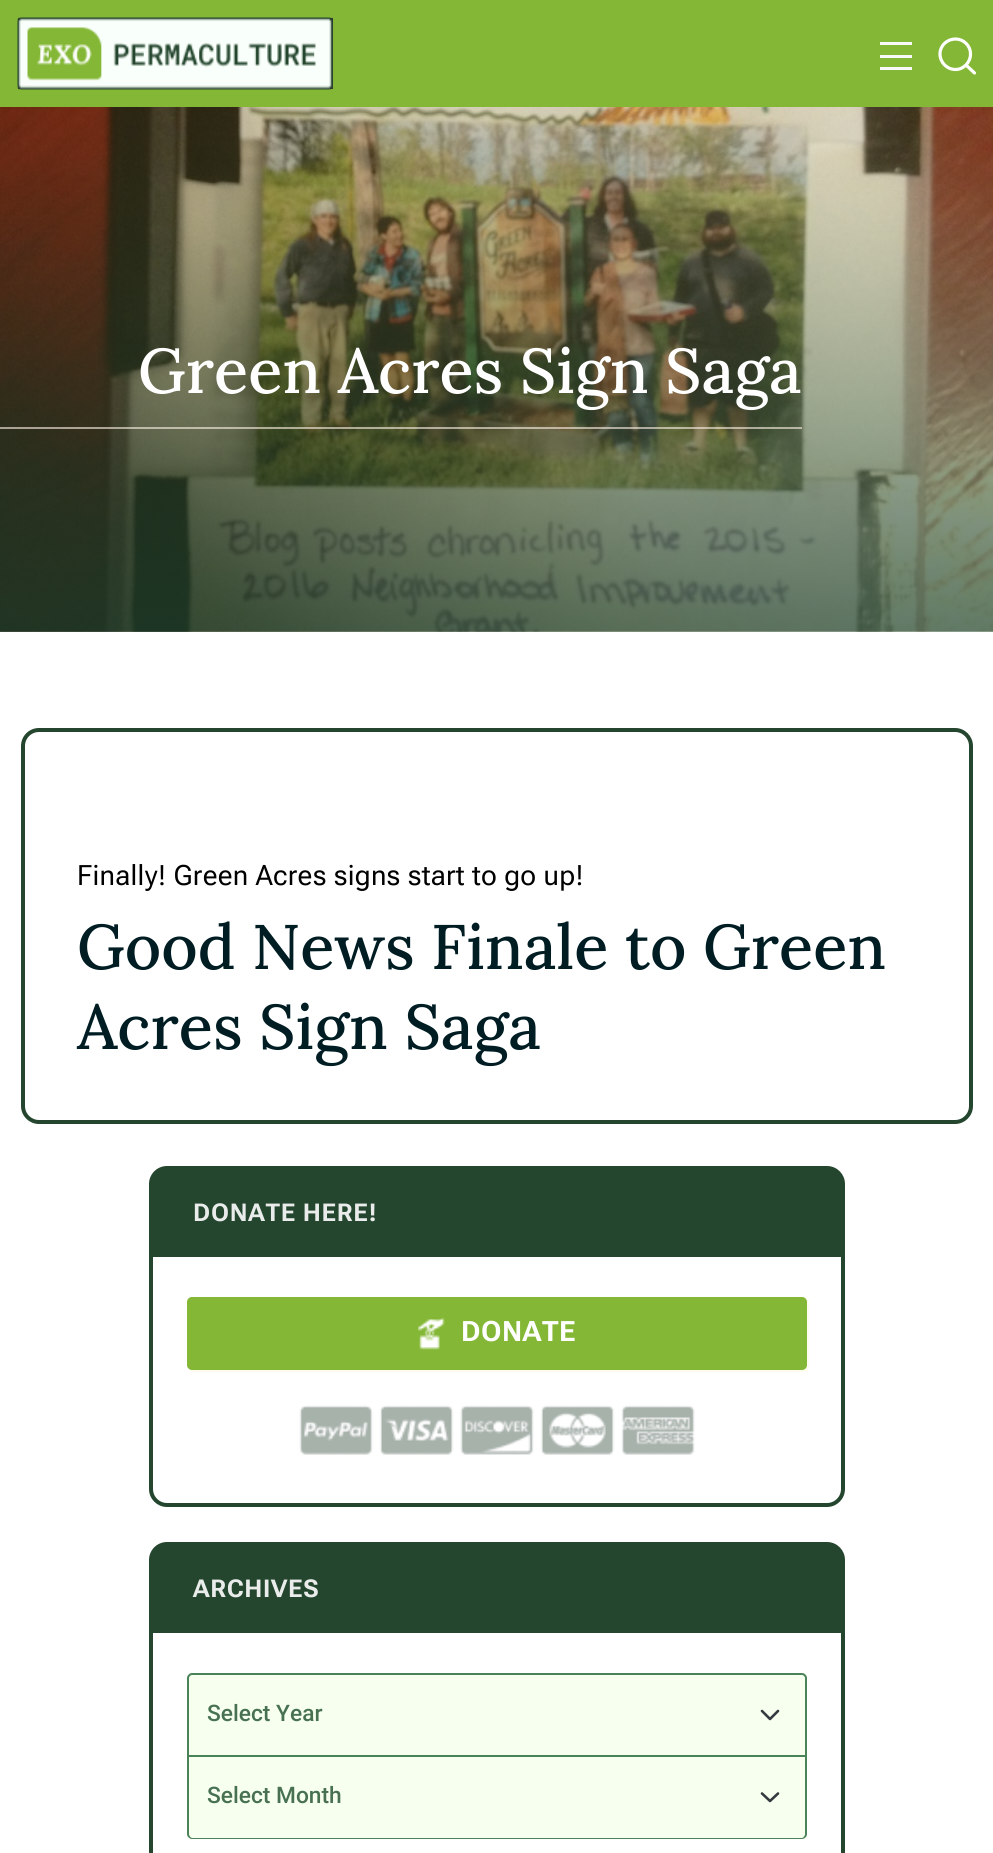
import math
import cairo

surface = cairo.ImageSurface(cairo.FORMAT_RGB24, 993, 1853)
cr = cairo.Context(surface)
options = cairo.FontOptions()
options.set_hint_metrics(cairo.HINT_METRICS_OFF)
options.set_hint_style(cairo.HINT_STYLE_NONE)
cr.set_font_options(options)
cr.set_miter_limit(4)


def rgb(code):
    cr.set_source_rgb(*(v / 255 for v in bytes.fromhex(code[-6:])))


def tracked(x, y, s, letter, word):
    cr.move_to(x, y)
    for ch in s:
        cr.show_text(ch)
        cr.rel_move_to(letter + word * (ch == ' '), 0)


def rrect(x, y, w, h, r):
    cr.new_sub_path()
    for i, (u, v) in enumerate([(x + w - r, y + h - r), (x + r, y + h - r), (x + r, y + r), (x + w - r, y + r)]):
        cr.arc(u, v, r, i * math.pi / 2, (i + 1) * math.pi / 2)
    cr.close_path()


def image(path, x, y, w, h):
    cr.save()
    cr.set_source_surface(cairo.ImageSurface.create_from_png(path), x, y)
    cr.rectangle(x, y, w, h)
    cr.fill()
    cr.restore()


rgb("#ffffff")
cr.paint()
rgb("#83b735")
cr.rectangle(0, 0, 993, 107)
cr.fill()
rgb("#343434")
cr.rectangle(18, 18, 315, 71)
cr.fill()
image("img/1.png", 17, 17, 316, 73)
for x, y, w, h, color in [
    (880, 42, 32, 3, "#f9f9f9"),
    (880, 55, 32, 3, "#f9f9f9"),
    (880, 67, 32, 3, "#f9f9f9"),
]:
    rgb(color)
    cr.rectangle(x, y, w, h)
    cr.fill()
cr.new_path()
cr.move_to(966, 65)
cr.line_to(974.5, 73)
cr.move_to(970.5, 54)
cr.curve_to(970.5, 62.5, 963.5, 69.5, 955.5, 69.5)
cr.curve_to(947, 69.5, 940, 62.5, 940, 54)
cr.curve_to(940, 45.5, 947, 39, 955.5, 39)
cr.curve_to(963.5, 39, 970.5, 45.5, 970.5, 54)
cr.close_path()
rgb("#ffffff")
cr.set_line_width(3.2)
cr.set_line_cap(cairo.LINE_CAP_ROUND)
cr.set_line_join(cairo.LINE_JOIN_ROUND)
cr.stroke()
image("img/2.png", 0, 107, 993, 525)
cr.set_source_rgba(1, 0.949, 0.91, 0.6)
cr.rectangle(0, 427, 802, 2)
cr.fill()
rrect(23, 730, 948, 392, 16)
rgb("#24462e")
cr.set_line_width(4)
cr.set_line_cap(cairo.LINE_CAP_BUTT)
cr.set_line_join(cairo.LINE_JOIN_MITER)
cr.stroke()
rrect(151, 1168, 692, 337, 16)
cr.stroke()
cr.new_path()
cr.move_to(166, 1169)
cr.line_to(828, 1169)
cr.curve_to(835.5, 1169, 842, 1175.5, 842, 1183)
cr.line_to(842, 1257)
cr.line_to(152, 1257)
cr.line_to(152, 1183)
cr.curve_to(152, 1175.5, 158.5, 1169, 166, 1169)
cr.close_path()
cr.fill()
rgb("#fffcee")
cr.new_path()
cr.move_to(190, 1369)
cr.curve_to(190, 1371, 192, 1372, 194, 1372)
cr.line_to(804, 1372)
cr.curve_to(807, 1372, 809, 1370, 809, 1367)
cr.line_to(809, 1304)
cr.curve_to(809, 1302, 808, 1300, 806, 1299)
cr.line_to(807, 1302)
cr.line_to(807, 1365)
cr.curve_to(807, 1368, 804, 1370, 802, 1370)
cr.line_to(192, 1370)
cr.close_path()
cr.fill()
rgb("#83b735")
rrect(187, 1297, 620, 73, 5)
cr.fill()
image("img/3.png", 418, 1317, 27, 33)
image("img/4.png", 299, 1405, 396, 50)
rrect(151, 1544, 692, 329, 16)
rgb("#24462e")
cr.stroke()
cr.new_path()
cr.move_to(166, 1545)
cr.line_to(828, 1545)
cr.curve_to(835.5, 1545, 842, 1551.5, 842, 1559)
cr.line_to(842, 1633)
cr.line_to(152, 1633)
cr.line_to(152, 1559)
cr.curve_to(152, 1551.5, 158.5, 1545, 166, 1545)
cr.close_path()
cr.fill()
rgb("#f7ffef")
cr.new_path()
cr.move_to(192, 1673)
cr.line_to(802, 1673)
cr.curve_to(805, 1673, 807, 1675, 807, 1678)
cr.line_to(807, 1757)
cr.line_to(187, 1757)
cr.line_to(187, 1678)
cr.curve_to(187, 1675, 189, 1673, 192, 1673)
cr.close_path()
cr.fill()
cr.new_path()
cr.move_to(762, 1711)
cr.line_to(770, 1719)
cr.line_to(778, 1711)
rgb("#343a40")
cr.set_line_width(2.6)
cr.set_line_cap(cairo.LINE_CAP_ROUND)
cr.set_line_join(cairo.LINE_JOIN_ROUND)
cr.stroke()
cr.new_path()
cr.move_to(192, 1674)
cr.line_to(802, 1674)
cr.curve_to(804, 1674, 806, 1676, 806, 1678)
cr.line_to(806, 1756)
cr.line_to(188, 1756)
cr.line_to(188, 1678)
cr.curve_to(188, 1676, 190, 1674, 192, 1674)
cr.close_path()
rgb("#4a8359")
cr.set_line_width(2)
cr.set_line_cap(cairo.LINE_CAP_BUTT)
cr.set_line_join(cairo.LINE_JOIN_MITER)
cr.stroke()
rgb("#f7ffef")
cr.new_path()
cr.move_to(187, 1757)
cr.line_to(807, 1757)
cr.line_to(807, 1834)
cr.curve_to(807, 1837, 805, 1839, 802, 1839)
cr.line_to(192, 1839)
cr.curve_to(189, 1839, 187, 1837, 187, 1834)
cr.close_path()
cr.fill()
cr.new_path()
cr.move_to(762, 1793.5)
cr.line_to(770, 1801)
cr.line_to(778, 1793.5)
rgb("#343a40")
cr.set_line_width(2.6)
cr.set_line_cap(cairo.LINE_CAP_ROUND)
cr.set_line_join(cairo.LINE_JOIN_ROUND)
cr.stroke()
rgb("#4a8359")
cr.set_fill_rule(cairo.FILL_RULE_EVEN_ODD)
cr.new_path()
cr.move_to(187, 1757)
cr.line_to(807, 1757)
cr.line_to(807, 1834)
cr.curve_to(807, 1837, 804, 1839, 802, 1839)
cr.line_to(192, 1839)
cr.curve_to(190, 1839, 187, 1837, 187, 1834)
cr.close_path()
cr.move_to(189, 1757)
cr.line_to(805, 1757)
cr.line_to(805, 1834)
cr.curve_to(805, 1836, 803, 1838, 802, 1838)
cr.line_to(192, 1838)
cr.curve_to(191, 1838, 189, 1836, 189, 1834)
cr.close_path()
cr.fill()
cr.select_font_face("Lora Medium")
cr.set_font_size(63)
rgb("#ffffff")
cr.move_to(138, 393)
cr.show_text("Green Acres Sign Saga")
cr.select_font_face("Roboto Flex")
cr.set_font_size(28)
rgb("#000000")
tracked(77, 885, "Finally! Green Acres signs start to go up!", 0.3, 0)
cr.select_font_face("Lora Medium")
cr.set_font_size(63)
rgb("#001d23")
cr.move_to(77, 969)
cr.show_text("Good News Finale to Green")
cr.move_to(77, 1049)
cr.show_text("Acres Sign Saga")
cr.select_font_face("Roboto Flex", cairo.FONT_SLANT_NORMAL, cairo.FONT_WEIGHT_BOLD)
cr.set_font_size(24.5)
rgb("#e9ecea")
tracked(193, 1221, "DONATE HERE!", 0.75, 0)
cr.select_font_face("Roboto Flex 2", cairo.FONT_SLANT_NORMAL, cairo.FONT_WEIGHT_BOLD)
cr.set_font_size(28)
rgb("#ffffff")
tracked(461, 1341, "DONATE", 0.5, 0)
cr.select_font_face("Roboto Flex", cairo.FONT_SLANT_NORMAL, cairo.FONT_WEIGHT_BOLD)
cr.set_font_size(24.5)
rgb("#e9ecea")
tracked(193, 1597, "ARCHIVES", 0.75, 0)
cr.select_font_face("Roboto Medium")
cr.set_font_size(22.75)
rgb("#487152")
cr.move_to(207, 1721)
cr.show_text("Select Year")
cr.move_to(207, 1803)
cr.show_text("Select Month")
surface.write_to_png("page.png")
